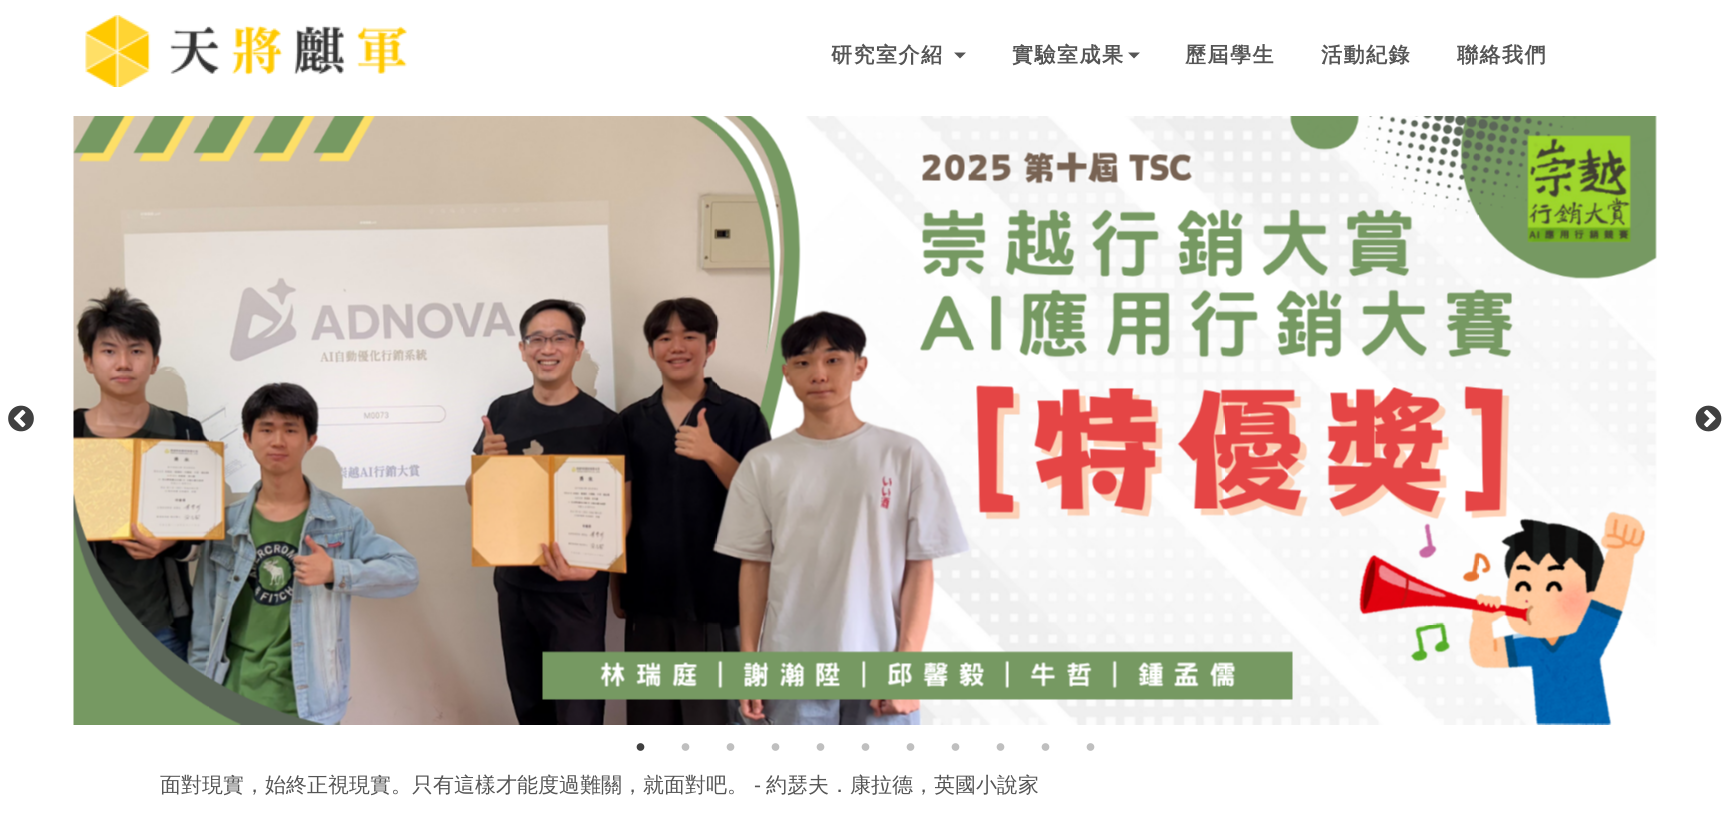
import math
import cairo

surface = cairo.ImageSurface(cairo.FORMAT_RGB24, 1729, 823)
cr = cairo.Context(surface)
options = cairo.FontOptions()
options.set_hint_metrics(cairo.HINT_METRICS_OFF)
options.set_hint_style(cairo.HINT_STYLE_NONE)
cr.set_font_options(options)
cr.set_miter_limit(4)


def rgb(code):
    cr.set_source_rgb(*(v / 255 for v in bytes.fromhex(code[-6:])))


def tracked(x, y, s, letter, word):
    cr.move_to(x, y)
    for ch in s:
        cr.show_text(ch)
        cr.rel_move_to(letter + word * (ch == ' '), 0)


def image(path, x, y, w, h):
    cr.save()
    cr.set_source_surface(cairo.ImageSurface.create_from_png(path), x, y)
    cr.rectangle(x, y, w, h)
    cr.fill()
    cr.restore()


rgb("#ffffff")
cr.paint()
image("img/1.png", 85, 15, 322, 72)
rgb("#555555")
cr.new_path()
cr.move_to(954, 52.5)
cr.line_to(966, 52.5)
cr.line_to(960, 58.5)
cr.close_path()
cr.fill()
cr.new_path()
cr.move_to(1128, 52.5)
cr.line_to(1140, 52.5)
cr.line_to(1134, 58.5)
cr.close_path()
cr.fill()
image("img/2.png", 8, 405, 26, 27)
image("img/3.png", 73, 116, 1584, 609)
image("img/4.png", 1695, 405, 27, 27)
image("img/5.png", 636, 743, 9, 8)
image("img/6.png", 681, 743, 9, 8)
image("img/6.png", 726, 743, 9, 8)
image("img/6.png", 771, 743, 9, 8)
image("img/6.png", 816, 743, 9, 8)
image("img/6.png", 861, 743, 9, 8)
image("img/6.png", 906, 743, 9, 8)
image("img/6.png", 951, 743, 9, 8)
image("img/6.png", 996, 743, 9, 8)
image("img/6.png", 1041, 743, 9, 8)
image("img/6.png", 1086, 743, 9, 8)
cr.select_font_face("WenQuanYi Zen Hei", cairo.FONT_SLANT_NORMAL, cairo.FONT_WEIGHT_BOLD)
cr.set_font_size(21)
for x, y, s in [
    (831, 62, "研究室介紹"),
    (1012, 62, "實驗室成果"),
    (1185, 62, "歷屆學生"),
    (1321, 62, "活動紀錄"),
    (1457, 62, "聯絡我們"),
]:
    tracked(x, y, s, 1.5, 0)
cr.select_font_face("WenQuanYi Zen Hei Medium")
cr.move_to(160, 792)
cr.show_text("面對現實，始終正視現實。只有這樣才能度過難關，就面對吧。")
cr.select_font_face("Liberation Sans")
cr.move_to(754, 792)
cr.show_text("-")
cr.select_font_face("WenQuanYi Zen Hei Medium")
cr.move_to(766, 792)
cr.show_text("約瑟夫．康拉德，英國小說家")
surface.write_to_png("page.png")
